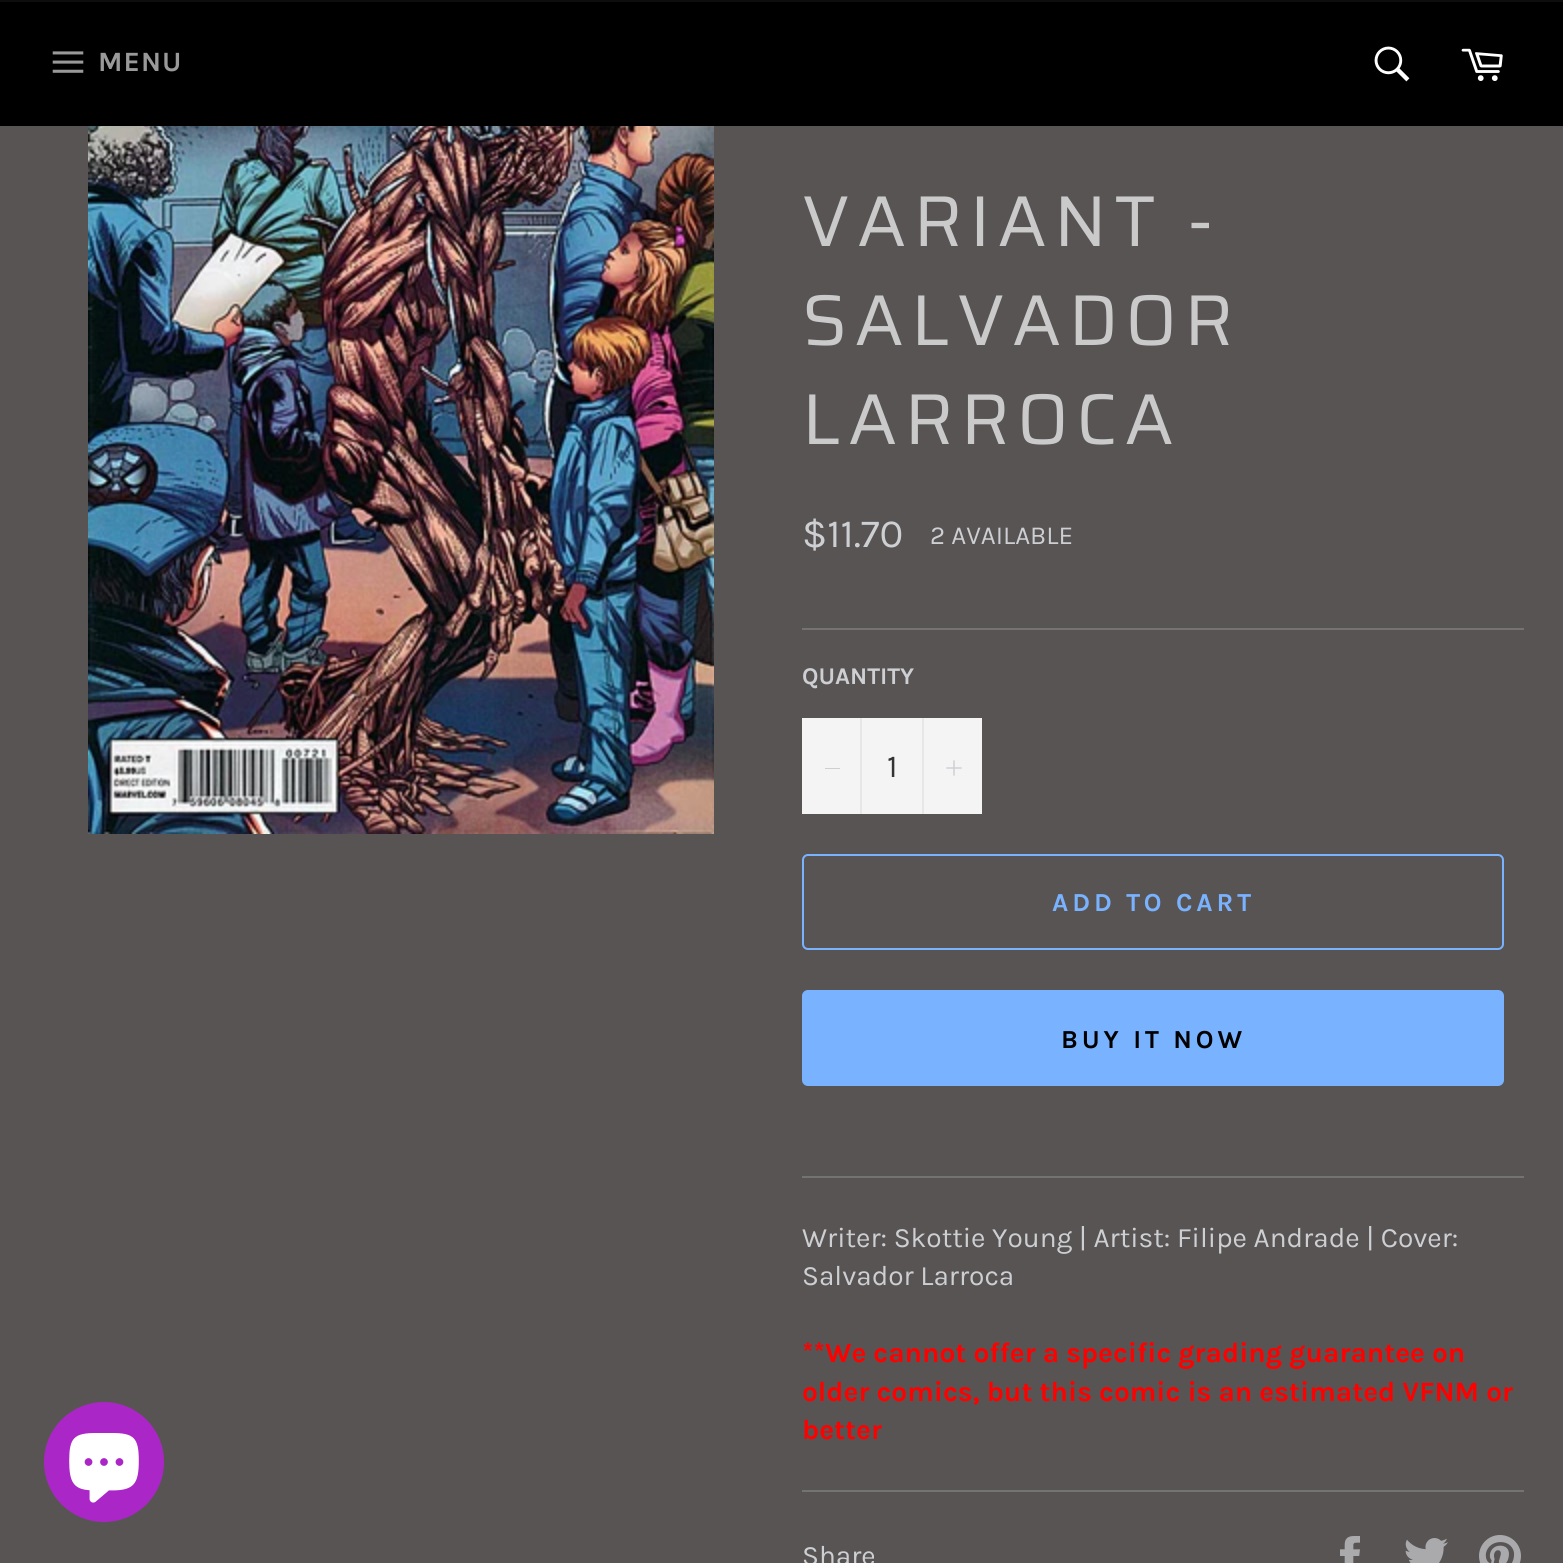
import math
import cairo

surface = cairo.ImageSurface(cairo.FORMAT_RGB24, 1563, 1563)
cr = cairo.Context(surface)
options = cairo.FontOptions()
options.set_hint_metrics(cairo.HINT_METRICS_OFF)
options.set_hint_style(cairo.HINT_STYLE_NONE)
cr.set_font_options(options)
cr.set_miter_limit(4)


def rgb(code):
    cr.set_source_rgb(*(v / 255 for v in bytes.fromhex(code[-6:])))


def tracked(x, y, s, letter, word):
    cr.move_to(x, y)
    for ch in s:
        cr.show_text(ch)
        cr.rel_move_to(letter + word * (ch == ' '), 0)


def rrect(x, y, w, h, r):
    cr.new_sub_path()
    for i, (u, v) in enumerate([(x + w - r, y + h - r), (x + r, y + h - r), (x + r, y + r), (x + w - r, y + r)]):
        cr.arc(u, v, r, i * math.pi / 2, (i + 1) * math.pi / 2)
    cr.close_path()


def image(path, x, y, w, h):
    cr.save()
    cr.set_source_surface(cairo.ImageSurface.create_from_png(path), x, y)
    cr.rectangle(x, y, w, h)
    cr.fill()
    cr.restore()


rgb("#585454")
cr.paint()
rgb("#000000")
cr.rectangle(0, 2, 1563, 124)
cr.fill()
rgb("#0d0d0d")
cr.rectangle(0, 0, 1563, 2)
cr.fill()
image("img/1.png", 52, 51, 32, 22)
image("img/2.png", 1374, 46, 36, 36)
image("img/3.png", 1461, 48, 42, 33)
rgb("#ab26c6")
cr.arc(104, 1462, 60, 0, 2 * math.pi)
cr.fill()
image("img/4.png", 69, 1433, 70, 70)
image("img/5.png", 88, 126, 626, 708)
for x, y, w, h, color in [
    (802, 628, 722, 2, "#737373"),
    (802, 718, 180, 96, "#f4f4f4"),
    (860, 718, 2, 96, "#e7e7e7"),
    (825, 768, 15, 1, "#cdcfd2"),
    (922, 718, 2, 96, "#e7e7e7"),
]:
    rgb(color)
    cr.rectangle(x, y, w, h)
    cr.fill()
image("img/6.png", 946, 760, 16, 16)
rrect(803, 855, 700, 94, 5)
rgb("#79b3ff")
cr.stroke()
rrect(802, 990, 702, 96, 6)
cr.fill()
rgb("#737373")
cr.rectangle(802, 1176, 722, 2)
cr.fill()
cr.rectangle(802, 1490, 722, 2)
cr.fill()
image("img/7.png", 1340, 1536, 20, 27)
image("img/8.png", 1405, 1538, 43, 25)
image("img/9.png", 1479, 1535, 42, 28)
cr.select_font_face("Karla", cairo.FONT_SLANT_NORMAL, cairo.FONT_WEIGHT_BOLD)
cr.set_font_size(28)
rgb("#999999")
tracked(98, 71, "MENU", 1, 0)
cr.select_font_face("Saira")
cr.set_font_size(72)
rgb("#cacaca")
for x, y, s in [
    (802, 246, "VARIANT -"),
    (802, 345, "SALVADOR"),
    (802, 444, "LARROCA"),
]:
    tracked(x, y, s, 7.25, 0)
cr.select_font_face("Karla")
cr.set_font_size(40)
rgb("#cdcfd2")
cr.move_to(802, 547)
cr.show_text("$11.70")
cr.set_font_size(26)
cr.move_to(930, 544)
cr.show_text("2 AVAILABLE")
cr.select_font_face("Karla", cairo.FONT_SLANT_NORMAL, cairo.FONT_WEIGHT_BOLD)
cr.set_font_size(24)
cr.move_to(802, 684)
cr.show_text("QUANTITY")
cr.select_font_face("Karla")
cr.set_font_size(32)
rgb("#333333")
cr.move_to(887, 777)
cr.show_text("1")
cr.select_font_face("Karla", cairo.FONT_SLANT_NORMAL, cairo.FONT_WEIGHT_BOLD)
cr.set_font_size(26)
rgb("#79b3ff")
tracked(1052, 911, "ADD TO CART", 3.9, 0)
rgb("#000000")
tracked(1061, 1048, "BUY IT NOW", 3.9, 0)
cr.select_font_face("Karla")
cr.set_font_size(28)
rgb("#cdcfd2")
cr.move_to(802, 1247)
cr.show_text("Writer: Skottie Young | Artist: Filipe Andrade | Cover:")
cr.move_to(802, 1285)
cr.show_text("Salvador Larroca")
cr.select_font_face("Karla", cairo.FONT_SLANT_NORMAL, cairo.FONT_WEIGHT_BOLD)
rgb("#ff0000")
for x, y, s in [
    (802, 1362, "**We cannot offer a specific grading guarantee on"),
    (802, 1401, "older comics, but this comic is an estimated VFNM or"),
    (802, 1439, "better"),
]:
    cr.move_to(x, y)
    cr.show_text(s)
cr.select_font_face("Karla")
rgb("#cdcfd2")
cr.move_to(802, 1565)
cr.show_text("Share")
surface.write_to_png("page.png")
